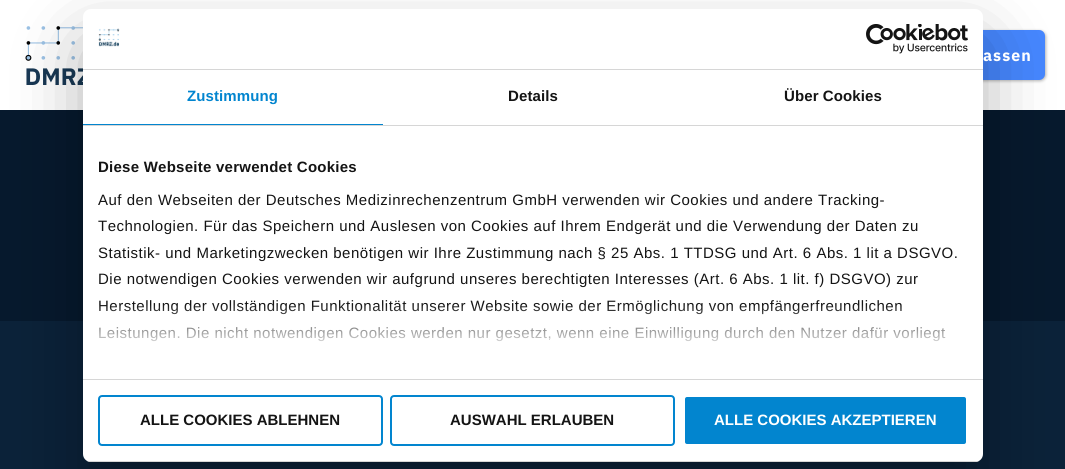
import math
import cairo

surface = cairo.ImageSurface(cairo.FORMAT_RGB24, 1065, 469)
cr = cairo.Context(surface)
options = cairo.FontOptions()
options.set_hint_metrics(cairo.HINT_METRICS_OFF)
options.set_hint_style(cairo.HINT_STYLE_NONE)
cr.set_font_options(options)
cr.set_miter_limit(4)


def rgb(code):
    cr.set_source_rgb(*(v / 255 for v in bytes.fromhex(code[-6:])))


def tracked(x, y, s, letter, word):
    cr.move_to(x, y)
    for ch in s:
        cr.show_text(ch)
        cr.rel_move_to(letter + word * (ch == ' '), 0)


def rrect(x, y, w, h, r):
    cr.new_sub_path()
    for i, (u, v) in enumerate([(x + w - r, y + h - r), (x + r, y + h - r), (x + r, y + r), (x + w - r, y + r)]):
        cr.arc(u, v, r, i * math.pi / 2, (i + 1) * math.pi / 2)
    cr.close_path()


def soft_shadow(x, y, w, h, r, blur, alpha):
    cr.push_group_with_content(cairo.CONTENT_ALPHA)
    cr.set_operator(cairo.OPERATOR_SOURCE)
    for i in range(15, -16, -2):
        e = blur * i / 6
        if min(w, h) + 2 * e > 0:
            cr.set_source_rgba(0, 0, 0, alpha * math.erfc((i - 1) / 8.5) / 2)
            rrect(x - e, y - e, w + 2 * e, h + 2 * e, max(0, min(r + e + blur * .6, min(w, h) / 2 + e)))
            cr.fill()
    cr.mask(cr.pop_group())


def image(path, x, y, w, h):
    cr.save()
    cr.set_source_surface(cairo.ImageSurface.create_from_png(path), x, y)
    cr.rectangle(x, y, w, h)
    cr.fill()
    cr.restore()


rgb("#0b2239")
cr.paint()
rgb("#ffffff")
cr.rectangle(0, 0, 1065, 110)
cr.fill()
image("img/1.png", 25, 26, 58, 59)
rgb("#000000")
soft_shadow(894, 31, 152, 50, 6, 1.5, 0.3)
rgb("#4687ff")
rrect(894.5, 31.5, 149, 47, 4.5)
cr.fill_preserve()
cr.set_line_width(3)
cr.stroke()
rgb("#06192d")
cr.rectangle(0, 110, 1065, 211)
cr.fill()
rgb("#000000")
soft_shadow(83, 41, 900, 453, 8, 34, 0.3)
rgb("#ffffff")
rrect(83, 9, 900, 453, 8)
cr.fill()
rgb("#d6d6d6")
cr.rectangle(83, 69, 900, 1)
cr.fill()
image("img/2.png", 98, 28, 22, 19)
image("img/3.png", 866, 24, 102, 30)
for x, y, w, h, color in [
    (83, 125, 900, 1, "#d6d6d6"),
    (83, 124, 300, 1, "#0285cf"),
    (83, 379, 900, 1, "#d6d6d6"),
]:
    rgb(color)
    cr.rectangle(x, y, w, h)
    cr.fill()
cr.save()
rrect(83, 9, 900, 453, 8)
cr.clip()
cr.rectangle(83, 461, 900, 1)
cr.fill()
cr.restore()
rrect(99, 396, 283, 49, 3)
rgb("#0285cf")
cr.set_line_width(2)
cr.stroke()
rrect(391, 396, 283, 49, 3)
cr.stroke()
rrect(684, 396, 283, 49, 3)
cr.fill_preserve()
rgb("#ffffff")
cr.stroke()
cr.select_font_face("IBM Plex Sans", cairo.FONT_SLANT_NORMAL, cairo.FONT_WEIGHT_BOLD)
cr.set_font_size(16)
tracked(983, 61, "assen", 1, 0)
cr.select_font_face("Liberation Sans", cairo.FONT_SLANT_NORMAL, cairo.FONT_WEIGHT_BOLD)
cr.set_font_size(15)
rgb("#0285cf")
tracked(187, 101, "Zustimmung", 0.1, 0)
rgb("#141414")
tracked(508, 101, "Details", 0.1, 0)
tracked(784, 101, "Über Cookies", 0.1, 0)
tracked(98, 172, "Diese Webseite verwendet Cookies", 0.25, 0)
cr.select_font_face("Liberation Sans")
for x, y, s in [
    (98, 205, "Auf den Webseiten der Deutsches Medizinrechenzentrum GmbH verwenden wir Cookies und andere Tracking-"),
    (98, 231, "Technologien. Für das Speichern und Auslesen von Cookies auf Ihrem Endgerät und die Verwendung der Daten zu"),
    (98, 258, "Statistik- und Marketingzwecken benötigen wir Ihre Zustimmung nach § 25 Abs. 1 TTDSG und Art. 6 Abs. 1 lit a DSGVO."),
    (98, 284, "Die notwendigen Cookies verwenden wir aufgrund unseres berechtigten Interesses (Art. 6 Abs. 1 lit. f) DSGVO) zur"),
    (98, 311, "Herstellung der vollständigen Funktionalität unserer Website sowie der Ermöglichung von empfängerfreundlichen"),
    (98, 338, "Leistungen. Die nicht notwendigen Cookies werden nur gesetzt, wenn eine Einwilligung durch den Nutzer dafür vorliegt"),
]:
    tracked(x, y, s, 0.5, 0)
gradient = cairo.LinearGradient(527, 379, 527, 304)
gradient.add_color_stop_rgba(0, 1, 1, 1, 1)
gradient.add_color_stop_rgba(0.5, 1, 1, 1, 0.8)
gradient.add_color_stop_rgba(1, 1, 1, 1, 0)
cr.set_source(gradient)
cr.rectangle(98, 305, 847, 37)
cr.fill()
cr.select_font_face("Liberation Sans", cairo.FONT_SLANT_NORMAL, cairo.FONT_WEIGHT_BOLD)
rgb("#141414")
cr.move_to(140, 425)
cr.show_text("ALLE COOKIES ABLEHNEN")
cr.move_to(450, 425)
cr.show_text("AUSWAHL ERLAUBEN")
rgb("#ffffff")
cr.move_to(714, 425)
cr.show_text("ALLE COOKIES AKZEPTIEREN")
surface.write_to_png("page.png")
